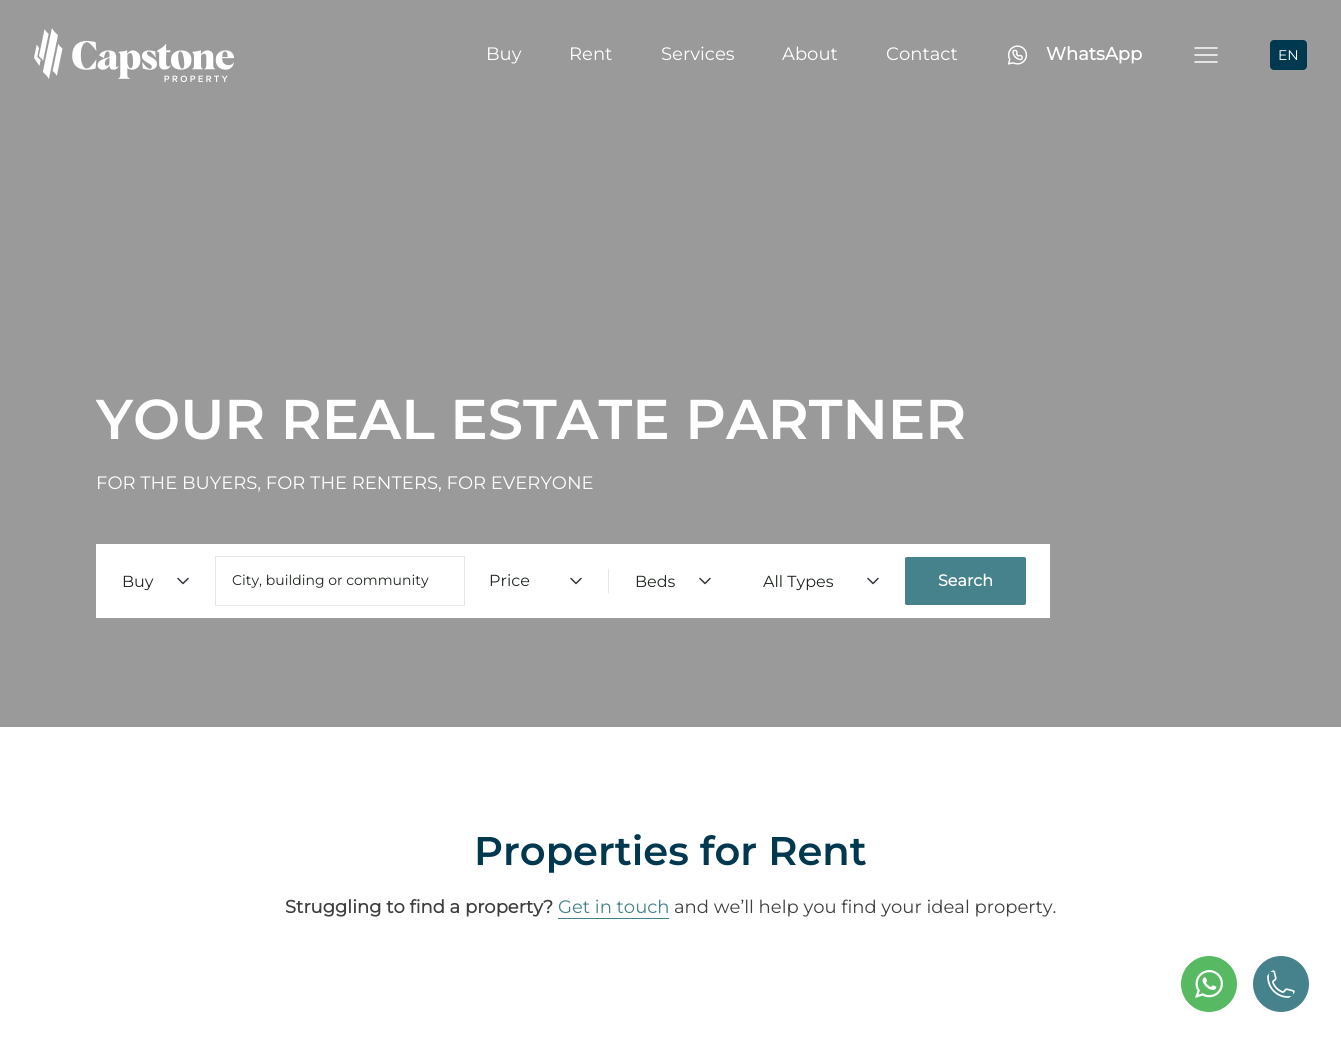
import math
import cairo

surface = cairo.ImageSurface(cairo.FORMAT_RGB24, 1341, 1044)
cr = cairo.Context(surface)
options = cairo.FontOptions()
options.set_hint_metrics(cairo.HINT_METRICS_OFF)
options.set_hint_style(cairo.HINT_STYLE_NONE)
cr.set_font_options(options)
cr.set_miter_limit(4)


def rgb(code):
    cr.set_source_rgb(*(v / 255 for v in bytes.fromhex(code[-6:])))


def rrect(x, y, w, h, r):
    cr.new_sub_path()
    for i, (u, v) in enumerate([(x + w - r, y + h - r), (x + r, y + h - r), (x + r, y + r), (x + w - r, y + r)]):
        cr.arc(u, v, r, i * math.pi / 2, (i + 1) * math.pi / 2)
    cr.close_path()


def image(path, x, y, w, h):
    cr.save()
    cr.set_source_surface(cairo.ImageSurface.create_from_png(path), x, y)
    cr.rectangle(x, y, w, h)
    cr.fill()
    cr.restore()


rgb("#ffffff")
cr.paint()
rgb("#9a9a9a")
cr.rectangle(0, 0, 1341, 727)
cr.fill()
image("img/1.png", 34, 28, 200, 54)
image("img/2.png", 1008, 45, 20, 20)
image("img/3.png", 1194, 47, 24, 16)
rgb("#003850")
rrect(1270, 40, 37, 30, 4)
cr.fill()
rgb("#ffffff")
cr.rectangle(96, 544, 954, 74)
cr.fill()
cr.new_path()
cr.move_to(188, 578.5)
cr.line_to(183, 583.5)
cr.line_to(178, 578.5)
rgb("#34373d")
cr.set_line_width(1.5)
cr.set_line_cap(cairo.LINE_CAP_ROUND)
cr.set_line_join(cairo.LINE_JOIN_ROUND)
cr.stroke()
cr.rectangle(215.5, 556.5, 249, 49)
rgb("#e6e6e6")
cr.set_line_width(1)
cr.set_line_cap(cairo.LINE_CAP_BUTT)
cr.set_line_join(cairo.LINE_JOIN_MITER)
cr.stroke()
cr.new_path()
cr.move_to(581, 578.5)
cr.line_to(576, 583.5)
cr.line_to(571, 578.5)
rgb("#34373d")
cr.set_line_width(1.5)
cr.set_line_cap(cairo.LINE_CAP_ROUND)
cr.set_line_join(cairo.LINE_JOIN_ROUND)
cr.stroke()
rgb("#e6e6e6")
cr.rectangle(608, 569, 1, 24)
cr.fill()
cr.new_path()
cr.move_to(710, 578.5)
cr.line_to(705, 583.5)
cr.line_to(700, 578.5)
rgb("#34373d")
cr.stroke()
cr.new_path()
cr.move_to(878, 578.5)
cr.line_to(873, 583.5)
cr.line_to(868, 578.5)
cr.stroke()
rgb("#45828c")
rrect(905.5, 557.5, 120, 47, 1.5)
cr.fill_preserve()
cr.set_line_width(1)
cr.set_line_cap(cairo.LINE_CAP_BUTT)
cr.set_line_join(cairo.LINE_JOIN_MITER)
cr.stroke()
cr.rectangle(558, 918, 111, 1)
cr.fill()
image("img/4.png", 1181, 956, 56, 56)
cr.arc(1281, 984, 28, 0, 2 * math.pi)
cr.fill()
image("img/5.png", 1267, 970, 28, 28)
cr.select_font_face("Montserrat")
cr.set_font_size(18)
rgb("#ffffff")
for x, y, s in [
    (486, 60, "Buy"),
    (569, 60, "Rent"),
    (661, 60, "Services"),
    (782, 60, "About"),
    (886, 60, "Contact"),
]:
    cr.move_to(x, y)
    cr.show_text(s)
cr.select_font_face("Montserrat", cairo.FONT_SLANT_NORMAL, cairo.FONT_WEIGHT_BOLD)
cr.move_to(1046, 60)
cr.show_text("WhatsApp")
cr.select_font_face("Montserrat")
cr.set_font_size(14)
cr.move_to(1278, 60)
cr.show_text("EN")
cr.select_font_face("Montserrat SemiBold")
cr.set_font_size(56)
cr.move_to(96, 439)
cr.show_text("YOUR REAL ESTATE PARTNER")
cr.select_font_face("Montserrat")
cr.set_font_size(18)
cr.move_to(96, 489)
cr.show_text("FOR THE BUYERS, FOR THE RENTERS, FOR EVERYONE")
cr.set_font_size(16)
rgb("#212721")
cr.move_to(122, 587)
cr.show_text("Buy")
cr.set_font_size(14)
cr.move_to(232, 585)
cr.show_text("City, building or community")
cr.set_font_size(16)
for x, y, s in [
    (489, 586, "Price"),
    (635, 587, "Beds"),
    (763, 587, "All Types"),
]:
    cr.move_to(x, y)
    cr.show_text(s)
cr.select_font_face("Montserrat", cairo.FONT_SLANT_NORMAL, cairo.FONT_WEIGHT_BOLD)
rgb("#ffffff")
cr.move_to(938, 586)
cr.show_text("Search")
cr.select_font_face("Montserrat SemiBold")
cr.set_font_size(40)
rgb("#003850")
cr.move_to(474, 865)
cr.show_text("Properties for Rent")
cr.select_font_face("Montserrat", cairo.FONT_SLANT_NORMAL, cairo.FONT_WEIGHT_BOLD)
cr.set_font_size(18)
rgb("#3f3f3f")
cr.move_to(285, 913)
cr.show_text("Struggling to find a property?")
cr.select_font_face("Montserrat")
rgb("#45828c")
cr.move_to(558, 913)
cr.show_text("Get in touch")
rgb("#3f3f3f")
cr.move_to(674, 913)
cr.show_text("and we’ll help you find your ideal property.")
surface.write_to_png("page.png")
